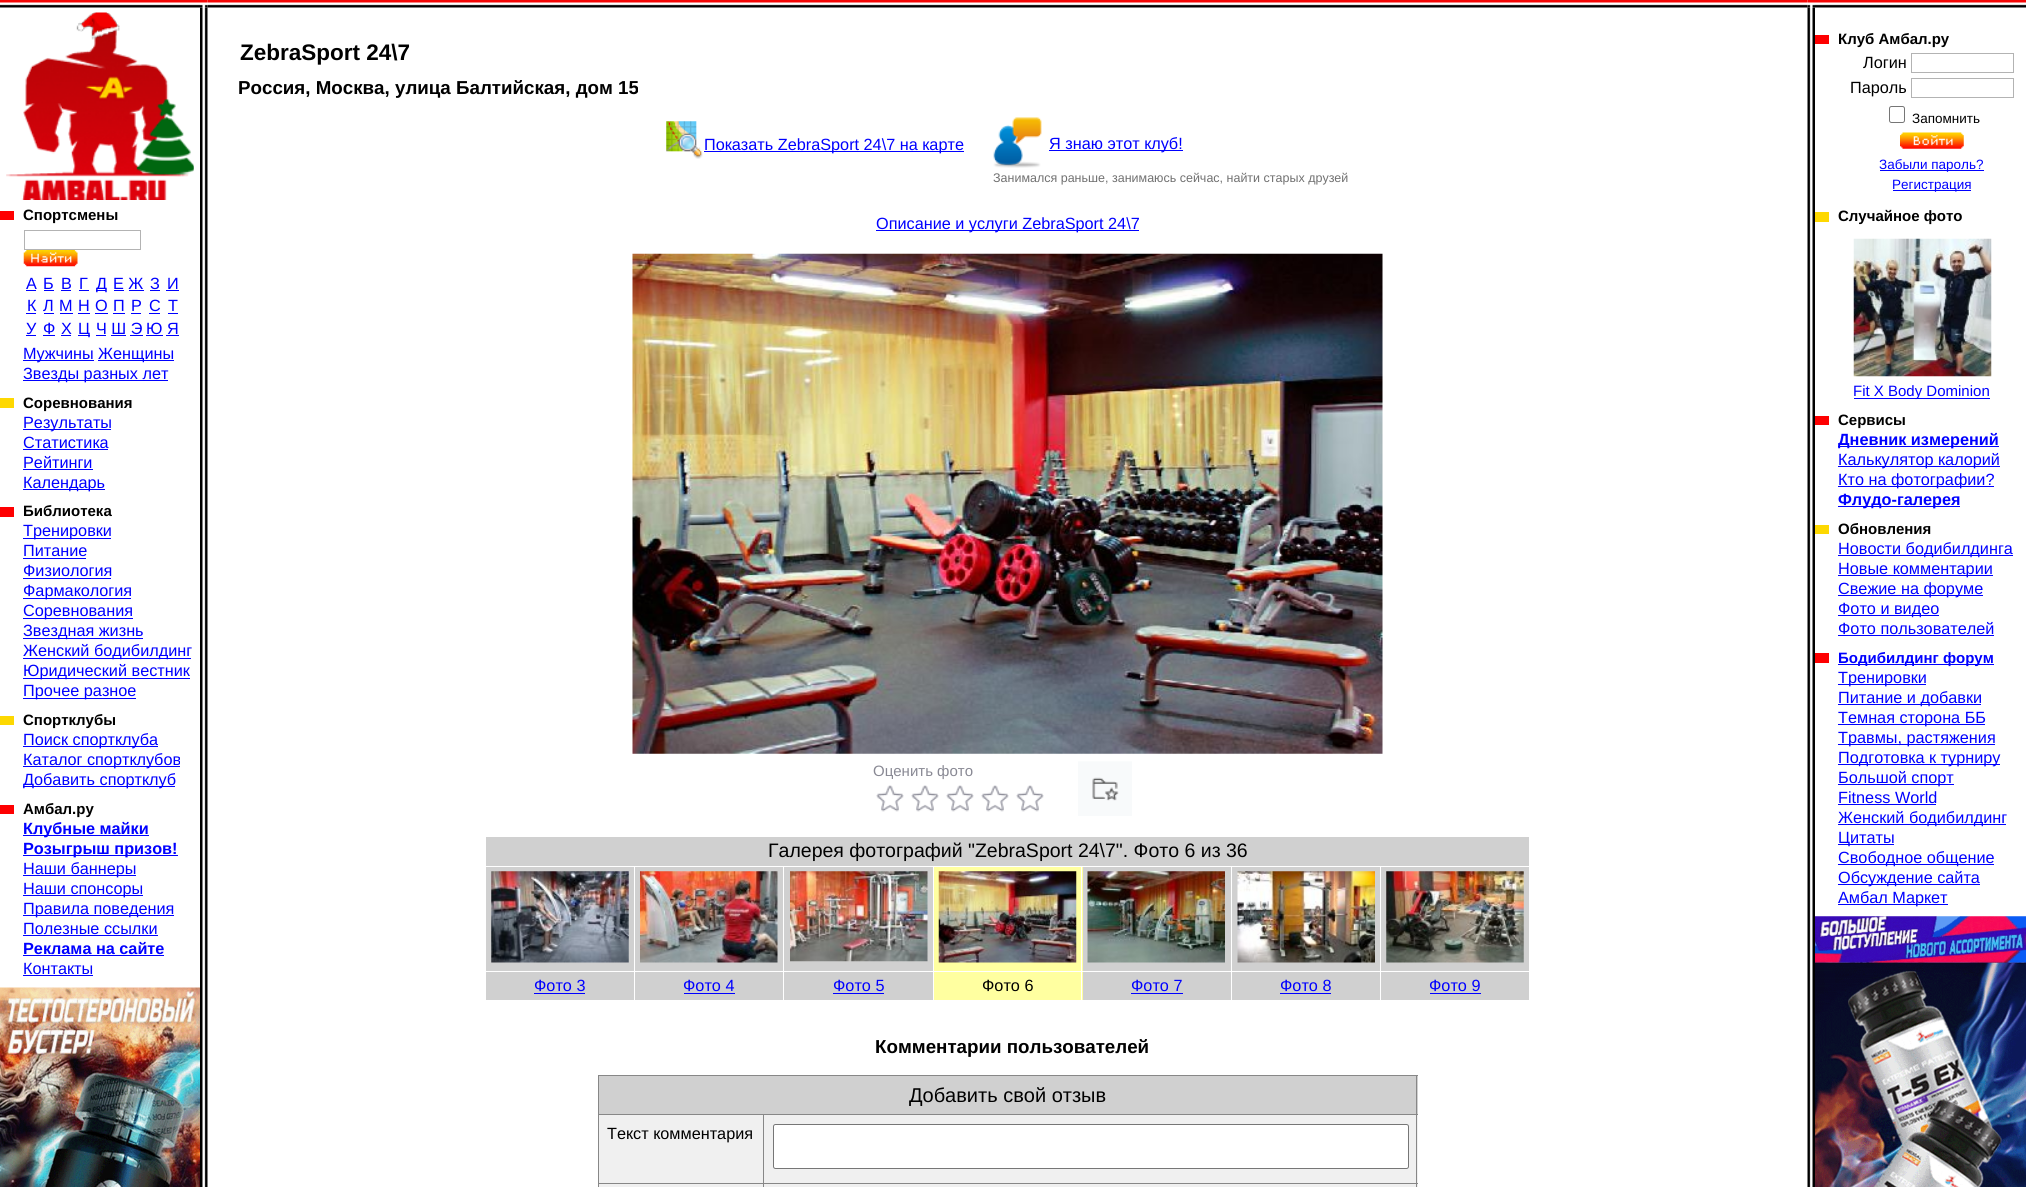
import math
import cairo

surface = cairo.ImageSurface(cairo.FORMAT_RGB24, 2026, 1187)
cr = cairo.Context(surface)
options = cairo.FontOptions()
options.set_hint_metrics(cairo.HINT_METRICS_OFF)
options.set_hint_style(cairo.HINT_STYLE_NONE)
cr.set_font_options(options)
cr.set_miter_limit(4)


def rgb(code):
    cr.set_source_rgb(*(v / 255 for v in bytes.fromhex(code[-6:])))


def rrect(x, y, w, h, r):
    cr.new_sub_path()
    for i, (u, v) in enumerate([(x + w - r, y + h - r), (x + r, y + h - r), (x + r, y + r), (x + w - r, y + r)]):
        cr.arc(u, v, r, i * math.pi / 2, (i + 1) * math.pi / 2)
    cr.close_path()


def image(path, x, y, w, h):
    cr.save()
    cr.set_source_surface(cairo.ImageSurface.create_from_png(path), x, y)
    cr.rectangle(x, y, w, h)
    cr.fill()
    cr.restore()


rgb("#ffffff")
cr.paint()
image("img/1.png", 0, 0, 200, 8)
image("img/3.png", 207, 0, 1601, 8)
image("img/9.png", 200, 7, 8, 1180)
image("img/2.png", 200, 0, 8, 8)
image("img/22.png", 1807, 7, 8, 1180)
image("img/4.png", 1807, 0, 8, 8)
image("img/5.png", 1815, 0, 211, 8)
image("img/6.png", 6, 12, 188, 188)
rgb("#fe0001")
cr.rectangle(0, 211, 14, 9)
cr.fill()
cr.rectangle(24.5, 230.5, 116, 19)
rgb("#b3b3b3")
cr.set_line_width(1)
cr.stroke()
image("img/7.png", 23, 250, 55, 17)
for x, y, w, h, color in [
    (26, 290, 10, 1, "#0000ff"),
    (44, 290, 10, 1, "#0000ff"),
    (61, 290, 10, 1, "#0000ff"),
    (79, 290, 10, 1, "#0000ff"),
    (96, 290, 10, 1, "#0000ff"),
    (114, 290, 10, 1, "#0000ff"),
    (150, 290, 10, 1, "#0000ff"),
    (166, 290, 13, 1, "#0000ff"),
    (129, 290, 15, 1, "#0000ff"),
    (26, 313, 10, 1, "#0000ff"),
    (44, 313, 10, 1, "#0000ff"),
    (60, 313, 13, 1, "#0000ff"),
    (78, 313, 12, 1, "#0000ff"),
    (95, 313, 13, 1, "#0000ff"),
    (113, 313, 12, 1, "#0000ff"),
    (131, 313, 10, 1, "#0000ff"),
    (149, 313, 11, 1, "#0000ff"),
    (168, 313, 10, 1, "#0000ff"),
    (26, 335, 10, 1, "#0000ff"),
    (43, 335, 12, 1, "#0000ff"),
    (61, 335, 10, 1, "#0000ff"),
    (78, 335, 12, 1, "#0000ff"),
    (96, 335, 10, 1, "#0000ff"),
    (146, 335, 17, 1, "#0000ff"),
    (166, 335, 13, 1, "#0000ff"),
    (111, 335, 15, 1, "#0000ff"),
    (130, 335, 13, 1, "#0000ff"),
    (23, 360, 71, 1, "#0000ff"),
    (98, 360, 76, 1, "#0000ff"),
    (23, 380, 145, 1, "#0000ff"),
    (0, 398, 14, 10, "#fed801"),
    (23, 429, 88, 1, "#0000ff"),
    (23, 449, 85, 1, "#0000ff"),
    (23, 469, 70, 1, "#0000ff"),
    (23, 489, 82, 1, "#0000ff"),
    (0, 507, 14, 10, "#fe0001"),
    (23, 538, 88, 1, "#0000ff"),
    (23, 558, 63, 1, "#0000ff"),
    (23, 578, 88, 1, "#0000ff"),
    (23, 598, 108, 1, "#0000ff"),
    (23, 618, 110, 1, "#0000ff"),
    (23, 638, 120, 1, "#0000ff"),
    (23, 658, 168, 1, "#0000ff"),
    (23, 678, 167, 1, "#0000ff"),
    (23, 698, 113, 1, "#0000ff"),
    (0, 716, 14, 9, "#fdd801"),
    (23, 746, 135, 1, "#0000ff"),
    (23, 766, 157, 1, "#0000ff"),
    (23, 786, 152, 1, "#0000ff"),
    (0, 805, 14, 9, "#fe0001"),
    (23, 835, 126, 1, "#0000ff"),
    (23, 855, 155, 1, "#0000ff"),
    (23, 875, 113, 1, "#0000ff"),
    (23, 895, 120, 1, "#0000ff"),
    (23, 915, 151, 1, "#0000ff"),
    (23, 935, 135, 1, "#0000ff"),
    (23, 955, 141, 1, "#0000ff"),
    (23, 975, 70, 1, "#0000ff"),
]:
    rgb(color)
    cr.rectangle(x, y, w, h)
    cr.fill()
image("img/8.png", 0, 987, 200, 200)
image("img/10.png", 666, 121, 37, 38)
cr.rectangle(704, 151, 260, 1)
cr.fill()
image("img/11.png", 993, 117, 49, 51)
cr.rectangle(1049, 150, 134, 1)
cr.fill()
cr.rectangle(876, 230, 263, 1)
cr.fill()
image("img/12.png", 632, 253, 751, 501)
image("img/13.png", 876, 785, 28, 27)
image("img/13.png", 911, 785, 28, 27)
image("img/13.png", 946, 785, 28, 27)
image("img/13.png", 981, 785, 28, 27)
image("img/13.png", 1016, 785, 28, 27)
image("img/14.png", 1078, 761, 54, 55)
rgb("#d0d0d0")
cr.rectangle(486, 837, 1043, 29)
cr.fill()
cr.rectangle(486, 867, 148, 104)
cr.fill()
image("img/15.png", 491, 871, 138, 92)
cr.rectangle(635, 867, 148, 104)
cr.fill()
image("img/16.png", 640, 871, 138, 92)
cr.rectangle(784, 867, 149, 104)
cr.fill()
image("img/17.png", 790, 871, 138, 91)
rgb("#ffffa0")
cr.rectangle(934, 867, 149, 104)
cr.fill()
image("img/18.png", 938, 871, 139, 92)
rgb("#d0d0d0")
cr.rectangle(1083, 867, 148, 104)
cr.fill()
image("img/19.png", 1087, 871, 138, 92)
cr.rectangle(1232, 867, 148, 104)
cr.fill()
image("img/20.png", 1237, 871, 138, 92)
cr.rectangle(1381, 867, 148, 104)
cr.fill()
image("img/21.png", 1386, 871, 138, 92)
for x, y, w, h, color in [
    (486, 972, 148, 28, "#d0d0d0"),
    (534, 993, 51, 1, "#0000ff"),
    (635, 972, 148, 28, "#d0d0d0"),
    (684, 993, 51, 1, "#0000ff"),
    (784, 972, 149, 28, "#d0d0d0"),
    (833, 993, 51, 1, "#0000ff"),
    (934, 972, 149, 28, "#ffffa0"),
    (1083, 972, 148, 28, "#d0d0d0"),
    (1081, 866, 1, 135, "#ffffff"),
    (1131, 993, 52, 1, "#0000ff"),
    (1232, 972, 148, 28, "#d0d0d0"),
    (1280, 993, 51, 1, "#0000ff"),
    (1381, 972, 148, 28, "#d0d0d0"),
    (1430, 993, 51, 1, "#0000ff"),
    (599, 1076, 819, 38, "#d0d0d0"),
    (598, 1075, 820, 1, "#878787"),
    (763, 1114, 655, 1, "#878787"),
    (764, 1115, 654, 68, "#f0f0f0"),
    (763, 1183, 655, 1, "#878787"),
    (598, 1184, 820, 3, "#f0f0f0"),
    (1416, 1183, 1, 4, "#878787"),
    (1416, 1114, 1, 70, "#878787"),
    (1416, 1075, 1, 40, "#878787"),
    (763, 1183, 1, 4, "#878787"),
    (598, 1183, 166, 1, "#878787"),
    (763, 1114, 1, 70, "#878787"),
    (598, 1114, 166, 1, "#878787"),
    (598, 1183, 1, 4, "#878787"),
    (598, 1114, 1, 70, "#878787"),
    (598, 1075, 1, 40, "#878787"),
    (599, 1115, 164, 68, "#f0f0f0"),
]:
    rgb(color)
    cr.rectangle(x, y, w, h)
    cr.fill()
rgb("#ffffff")
rrect(773.5, 1124.5, 635, 44, 2)
cr.fill_preserve()
rgb("#767676")
cr.stroke()
rgb("#fe0001")
cr.rectangle(1815, 35, 14, 9)
cr.fill()
cr.rectangle(1911.5, 53.5, 102, 19)
rgb("#b3b3b3")
cr.stroke()
cr.rectangle(1911.5, 78.5, 102, 19)
cr.stroke()
rrect(1889.5, 106.5, 15, 16, 2)
rgb("#767676")
cr.stroke()
image("img/23.png", 1900, 132, 64, 17)
for x, y, w, h, color in [
    (1880, 170, 104, 1, "#0000ff"),
    (1893, 190, 78, 1, "#0000ff"),
    (1815, 212, 14, 10, "#fed801"),
]:
    rgb(color)
    cr.rectangle(x, y, w, h)
    cr.fill()
image("img/24.png", 1853, 238, 139, 139)
for x, y, w, h, color in [
    (1854, 398, 136, 1, "#0000ff"),
    (1815, 416, 14, 9, "#fe0001"),
    (1838, 446, 161, 1, "#0000ff"),
    (1838, 466, 162, 1, "#0000ff"),
    (1838, 486, 156, 1, "#0000ff"),
    (1838, 506, 122, 1, "#0000ff"),
    (1815, 525, 14, 9, "#fdd801"),
    (1838, 555, 175, 1, "#0000ff"),
    (1838, 575, 155, 1, "#0000ff"),
    (1838, 595, 145, 1, "#0000ff"),
    (1838, 615, 101, 1, "#0000ff"),
    (1838, 635, 156, 1, "#0000ff"),
    (1815, 653, 14, 10, "#fe0001"),
    (1838, 664, 156, 1, "#0000ff"),
    (1838, 684, 88, 1, "#0000ff"),
    (1838, 704, 143, 1, "#0000ff"),
    (1838, 724, 147, 1, "#0000ff"),
    (1838, 744, 157, 1, "#0000ff"),
    (1838, 764, 162, 1, "#0000ff"),
    (1838, 784, 116, 1, "#0000ff"),
    (1838, 804, 98, 1, "#0000ff"),
    (1838, 824, 168, 1, "#0000ff"),
    (1838, 844, 56, 1, "#0000ff"),
    (1838, 864, 156, 1, "#0000ff"),
    (1838, 884, 142, 1, "#0000ff"),
    (1838, 904, 110, 1, "#0000ff"),
]:
    rgb(color)
    cr.rectangle(x, y, w, h)
    cr.fill()
image("img/25.png", 1815, 916, 211, 271)
cr.select_font_face("Liberation Sans", cairo.FONT_SLANT_NORMAL, cairo.FONT_WEIGHT_BOLD)
cr.set_font_size(15)
rgb("#000000")
cr.move_to(23, 220)
cr.show_text("Спортсмены")
cr.select_font_face("Liberation Sans")
cr.set_font_size(16.25)
rgb("#0000ff")
for x, y, s in [
    (26, 289, "А"),
    (43, 289, "Б"),
    (61, 289, "В"),
    (79, 289, "Г"),
    (96, 289, "Д"),
    (113, 289, "Е Ж"),
    (150, 289, "З"),
    (167, 289, "И"),
    (27, 311, "К"),
    (43, 311, "Л"),
    (59, 311, "М"),
    (78, 311, "Н"),
    (95, 311, "О"),
    (113, 311, "П"),
    (131, 311, "Р"),
    (149, 311, "С"),
    (168, 311, "Т"),
    (26, 334, "У"),
    (43, 334, "Ф"),
    (61, 334, "Х"),
    (78, 334, "Ц"),
    (96, 334, "Ч Ш Э"),
    (146, 334, "Ю"),
    (167, 334, "Я"),
    (23, 359, "Мужчины"),
    (98, 359, "Женщины"),
    (23, 379, "Звезды разных лет"),
]:
    cr.move_to(x, y)
    cr.show_text(s)
cr.select_font_face("Liberation Sans", cairo.FONT_SLANT_NORMAL, cairo.FONT_WEIGHT_BOLD)
cr.set_font_size(15)
rgb("#000000")
cr.move_to(23, 408)
cr.show_text("Соревнования")
cr.select_font_face("Liberation Sans")
cr.set_font_size(16.25)
rgb("#0000ff")
for x, y, s in [
    (23, 428, "Результаты"),
    (23, 448, "Статистика"),
    (23, 468, "Рейтинги"),
    (23, 488, "Календарь"),
]:
    cr.move_to(x, y)
    cr.show_text(s)
cr.select_font_face("Liberation Sans", cairo.FONT_SLANT_NORMAL, cairo.FONT_WEIGHT_BOLD)
cr.set_font_size(15)
rgb("#000000")
cr.move_to(23, 516)
cr.show_text("Библиотека")
cr.select_font_face("Liberation Sans")
cr.set_font_size(16.25)
rgb("#0000ff")
for x, y, s in [
    (23, 536, "Тренировки"),
    (23, 556, "Питание"),
    (23, 576, "Физиология"),
    (23, 596, "Фармакология"),
    (23, 616, "Соревнования"),
    (23, 636, "Звездная жизнь"),
    (23, 656, "Женский бодибилдинг"),
    (23, 676, "Юридический вестник"),
    (23, 696, "Прочее разное"),
]:
    cr.move_to(x, y)
    cr.show_text(s)
cr.select_font_face("Liberation Sans", cairo.FONT_SLANT_NORMAL, cairo.FONT_WEIGHT_BOLD)
cr.set_font_size(15)
rgb("#000000")
cr.move_to(23, 725)
cr.show_text("Спортклубы")
cr.select_font_face("Liberation Sans")
cr.set_font_size(16.25)
rgb("#0000ff")
for x, y, s in [
    (23, 745, "Поиск спортклуба"),
    (23, 765, "Каталог спортклубов"),
    (23, 785, "Добавить спортклуб"),
]:
    cr.move_to(x, y)
    cr.show_text(s)
cr.select_font_face("Liberation Sans", cairo.FONT_SLANT_NORMAL, cairo.FONT_WEIGHT_BOLD)
cr.set_font_size(15)
rgb("#000000")
cr.move_to(23, 814)
cr.show_text("Амбал.ру")
cr.set_font_size(16.25)
rgb("#0000ff")
cr.move_to(23, 834)
cr.show_text("Клубные майки")
cr.move_to(23, 854)
cr.show_text("Розыгрыш призов!")
cr.select_font_face("Liberation Sans")
for x, y, s in [
    (23, 874, "Наши баннеры"),
    (23, 894, "Наши спонсоры"),
    (23, 914, "Правила поведения"),
    (23, 934, "Полезные ссылки"),
]:
    cr.move_to(x, y)
    cr.show_text(s)
cr.select_font_face("Liberation Sans", cairo.FONT_SLANT_NORMAL, cairo.FONT_WEIGHT_BOLD)
cr.move_to(23, 954)
cr.show_text("Реклама на сайте")
cr.select_font_face("Liberation Sans")
cr.move_to(23, 974)
cr.show_text("Контакты")
cr.select_font_face("Liberation Sans", cairo.FONT_SLANT_NORMAL, cairo.FONT_WEIGHT_BOLD)
cr.set_font_size(22.5)
rgb("#000000")
cr.move_to(240, 60)
cr.show_text("ZebraSport 24\\7")
cr.set_font_size(18.75)
cr.move_to(238, 94)
cr.show_text("Россия, Москва, улица Балтийская, дом 15")
cr.select_font_face("Liberation Sans")
cr.set_font_size(16.25)
rgb("#0000ff")
cr.move_to(704, 150)
cr.show_text("Показать ZebraSport 24\\7 на карте")
cr.move_to(1049, 149)
cr.show_text("Я знаю этот клуб!")
cr.set_font_size(12.5)
rgb("#707070")
cr.move_to(993, 182)
cr.show_text("Занимался раньше, занимаюсь сейчас, найти старых друзей")
cr.set_font_size(16.25)
rgb("#0000ff")
cr.move_to(876, 229)
cr.show_text("Описание и услуги ZebraSport 24\\7")
cr.set_font_size(15)
rgb("#898994")
cr.move_to(873, 776)
cr.show_text("Оценить фото")
cr.set_font_size(19.5)
rgb("#000000")
cr.move_to(768, 857)
cr.show_text("Галерея фотографий \"ZebraSport 24\\7\". Фото 6 из 36")
cr.set_font_size(16.25)
rgb("#0000ff")
for x, y, s in [
    (534, 991, "Фото 3"),
    (683, 991, "Фото 4"),
    (833, 991, "Фото 5"),
]:
    cr.move_to(x, y)
    cr.show_text(s)
rgb("#000000")
cr.move_to(982, 991)
cr.show_text("Фото 6")
rgb("#0000ff")
for x, y, s in [
    (1131, 991, "Фото 7"),
    (1280, 991, "Фото 8"),
    (1429, 991, "Фото 9"),
]:
    cr.move_to(x, y)
    cr.show_text(s)
cr.select_font_face("Liberation Sans", cairo.FONT_SLANT_NORMAL, cairo.FONT_WEIGHT_BOLD)
cr.set_font_size(18.75)
rgb("#000000")
cr.move_to(875, 1053)
cr.show_text("Комментарии пользователей")
cr.select_font_face("Liberation Sans")
cr.set_font_size(20)
cr.move_to(909, 1102)
cr.show_text("Добавить свой отзыв")
cr.set_font_size(16.25)
cr.move_to(607, 1139)
cr.show_text("Текст комментария")
cr.select_font_face("Liberation Sans", cairo.FONT_SLANT_NORMAL, cairo.FONT_WEIGHT_BOLD)
cr.set_font_size(15)
cr.move_to(1838, 44)
cr.show_text("Клуб Амбал.ру")
cr.select_font_face("Liberation Sans")
cr.set_font_size(16.25)
cr.move_to(1863, 68)
cr.show_text("Логин")
cr.move_to(1850, 93)
cr.show_text("Пароль")
cr.set_font_size(13.5)
cr.move_to(1912, 123)
cr.show_text("Запомнить")
rgb("#0000ff")
cr.move_to(1879, 169)
cr.show_text("Забыли пароль?")
cr.move_to(1892, 189)
cr.show_text("Регистрация")
cr.select_font_face("Liberation Sans", cairo.FONT_SLANT_NORMAL, cairo.FONT_WEIGHT_BOLD)
cr.set_font_size(15)
rgb("#000000")
cr.move_to(1838, 221)
cr.show_text("Случайное фото")
cr.select_font_face("Liberation Sans")
rgb("#0000ff")
cr.move_to(1853, 396)
cr.show_text("Fit X Body Dominion")
cr.select_font_face("Liberation Sans", cairo.FONT_SLANT_NORMAL, cairo.FONT_WEIGHT_BOLD)
rgb("#000000")
cr.move_to(1838, 425)
cr.show_text("Сервисы")
cr.set_font_size(16.25)
rgb("#0000ff")
cr.move_to(1838, 445)
cr.show_text("Дневник измерений")
cr.select_font_face("Liberation Sans")
cr.move_to(1838, 465)
cr.show_text("Калькулятор калорий")
cr.move_to(1838, 485)
cr.show_text("Кто на фотографии?")
cr.select_font_face("Liberation Sans", cairo.FONT_SLANT_NORMAL, cairo.FONT_WEIGHT_BOLD)
cr.move_to(1838, 505)
cr.show_text("Флудо-галерея")
cr.set_font_size(15)
rgb("#000000")
cr.move_to(1838, 534)
cr.show_text("Обновления")
cr.select_font_face("Liberation Sans")
cr.set_font_size(16.25)
rgb("#0000ff")
for x, y, s in [
    (1838, 554, "Новости бодибилдинга"),
    (1838, 574, "Новые комментарии"),
    (1838, 594, "Свежие на форуме"),
    (1838, 614, "Фото и видео"),
    (1838, 634, "Фото пользователей"),
]:
    cr.move_to(x, y)
    cr.show_text(s)
cr.select_font_face("Liberation Sans", cairo.FONT_SLANT_NORMAL, cairo.FONT_WEIGHT_BOLD)
cr.set_font_size(15)
cr.move_to(1838, 663)
cr.show_text("Бодибилдинг форум")
cr.select_font_face("Liberation Sans")
cr.set_font_size(16.25)
for x, y, s in [
    (1838, 683, "Тренировки"),
    (1838, 703, "Питание и добавки"),
    (1838, 723, "Темная сторона ББ"),
    (1838, 743, "Травмы, растяжения"),
    (1838, 763, "Подготовка к турниру"),
    (1838, 783, "Большой спорт"),
    (1838, 803, "Fitness World"),
    (1838, 823, "Женский бодибилдинг"),
    (1838, 843, "Цитаты"),
    (1838, 863, "Свободное общение"),
    (1838, 883, "Обсуждение сайта"),
    (1838, 903, "Амбал Маркет"),
]:
    cr.move_to(x, y)
    cr.show_text(s)
surface.write_to_png("page.png")
